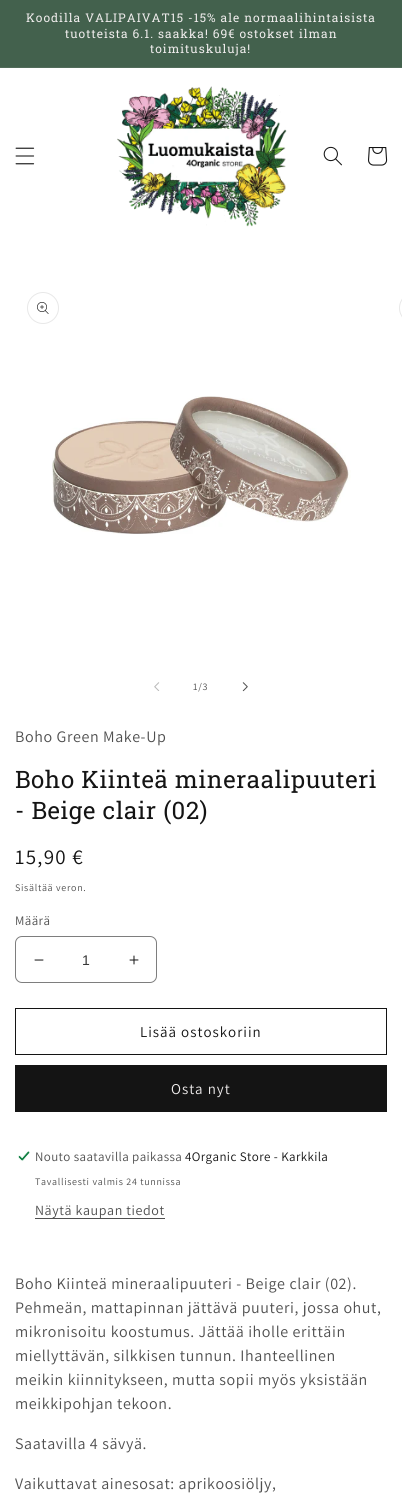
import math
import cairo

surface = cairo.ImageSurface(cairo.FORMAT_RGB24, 402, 1500)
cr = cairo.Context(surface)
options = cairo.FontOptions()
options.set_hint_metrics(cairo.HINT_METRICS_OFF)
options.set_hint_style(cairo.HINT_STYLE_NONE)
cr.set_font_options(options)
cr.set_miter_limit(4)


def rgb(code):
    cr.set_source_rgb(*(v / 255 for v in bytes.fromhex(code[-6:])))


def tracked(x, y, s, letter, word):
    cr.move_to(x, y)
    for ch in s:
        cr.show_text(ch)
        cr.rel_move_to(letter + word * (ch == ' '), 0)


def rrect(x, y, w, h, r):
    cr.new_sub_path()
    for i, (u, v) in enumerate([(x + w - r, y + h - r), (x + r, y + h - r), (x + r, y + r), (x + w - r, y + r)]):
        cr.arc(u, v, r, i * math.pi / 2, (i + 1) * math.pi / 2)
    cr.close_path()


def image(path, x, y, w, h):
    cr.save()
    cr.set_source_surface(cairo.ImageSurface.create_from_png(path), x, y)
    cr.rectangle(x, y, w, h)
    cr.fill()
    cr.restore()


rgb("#ffffff")
cr.paint()
rgb("#43614d")
cr.rectangle(0, 0, 402, 67)
cr.fill()
rgb("#516c5a")
cr.rectangle(0, 67, 402, 1)
cr.fill()
image("img/1.png", 15, 147, 20, 18)
image("img/2.png", 117, 86, 170, 141)
image("img/3.png", 323, 146, 19, 20)
image("img/4.png", 368, 147, 20, 19)
cr.arc(43, 308, 15.5, 0, 2 * math.pi)
rgb("#e8e8e8")
cr.set_line_width(1)
cr.stroke()
image("img/5.png", 37, 302, 12, 12)
image("img/6.png", 52, 396, 299, 138)
rrect(399.5, 292.5, 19, 31, 15.5)
cr.stroke()
image("img/7.png", 154, 682, 6, 9)
image("img/8.png", 242, 682, 6, 10)
image("img/9.png", 34, 959, 10, 2)
image("img/10.png", 129, 955, 10, 10)
rrect(15.5, 936.5, 141, 46, 6.5)
rgb("#7e7e7e")
cr.stroke()
cr.rectangle(15.5, 1008.5, 371, 46)
rgb("#141414")
cr.stroke()
cr.rectangle(15, 1065, 372, 47)
cr.fill()
image("img/11.png", 18, 1151, 12, 10)
rgb("#4f4f4f")
cr.rectangle(35, 1218, 130, 1)
cr.fill()
cr.select_font_face("Roboto Slab")
cr.set_font_size(12)
rgb("#efecec")
for x, y, s in [
    (26, 22, "Koodilla VALIPAIVAT15 -15% ale normaalihintaisista"),
    (65, 38, "tuotteista 6.1. saakka! 69€ ostokset ilman"),
    (150, 53, "toimituskuluja!"),
]:
    tracked(x, y, s, 1, 0)
cr.select_font_face("Assistant")
cr.set_font_size(10)
rgb("#4f4f4f")
tracked(193, 690, "1/3", 0.7, 0)
cr.set_font_size(16)
tracked(15, 742, "Boho Green Make-Up", 0.6, 0)
cr.select_font_face("Roboto Slab")
cr.set_font_size(24)
rgb("#141414")
tracked(15, 788, "Boho Kiinteä mineraalipuuteri", 0.6, 0)
tracked(15, 819, "- Beige clair (02)", 0.6, 0)
cr.select_font_face("Assistant")
cr.set_font_size(21)
tracked(15, 864, "15,90 €", 1.25, 0)
cr.set_font_size(10)
rgb("#4f4f4f")
tracked(15, 891, "Sisältää veron.", 0.7, 0)
cr.set_font_size(13)
tracked(15, 925, "Määrä", 0.4, 0)
cr.select_font_face("Liberation Sans")
cr.set_font_size(14)
rgb("#373737")
cr.move_to(82, 965)
cr.show_text("1")
cr.select_font_face("Assistant")
cr.set_font_size(15)
rgb("#141414")
tracked(140, 1037, "Lisää ostoskoriin", 1, 0)
rgb("#efecec")
tracked(171, 1094, "Osta nyt", 1, 0)
cr.set_font_size(13)
rgb("#4f4f4f")
tracked(35, 1161, "Nouto saatavilla paikassa", 0.4, 0)
rgb("#141414")
tracked(185, 1161, "4Organic Store - Karkkila", 0.4, 0)
cr.set_font_size(10)
rgb("#4f4f4f")
tracked(35, 1185, "Tavallisesti valmis 24 tunnissa", 0.7, 0)
cr.set_font_size(14)
tracked(35, 1215, "Näytä kaupan tiedot", 0.6, 0)
cr.set_font_size(16)
for x, y, s in [
    (15, 1289, "Boho Kiinteä mineraalipuuteri - Beige clair (02)."),
    (15, 1313, "Pehmeän, mattapinnan jättävä puuteri, jossa ohut,"),
    (15, 1337, "mikronisoitu koostumus. Jättää iholle erittäin"),
    (15, 1361, "miellyttävän, silkkisen tunnun. Ihanteellinen"),
    (15, 1385, "meikin kiinnitykseen, mutta sopii myös yksistään"),
    (15, 1409, "meikkipohjan tekoon."),
    (15, 1449, "Saatavilla 4 sävyä."),
    (15, 1489, "Vaikuttavat ainesosat: aprikoosiöljy,"),
]:
    tracked(x, y, s, 0.6, 0)
surface.write_to_png("page.png")
